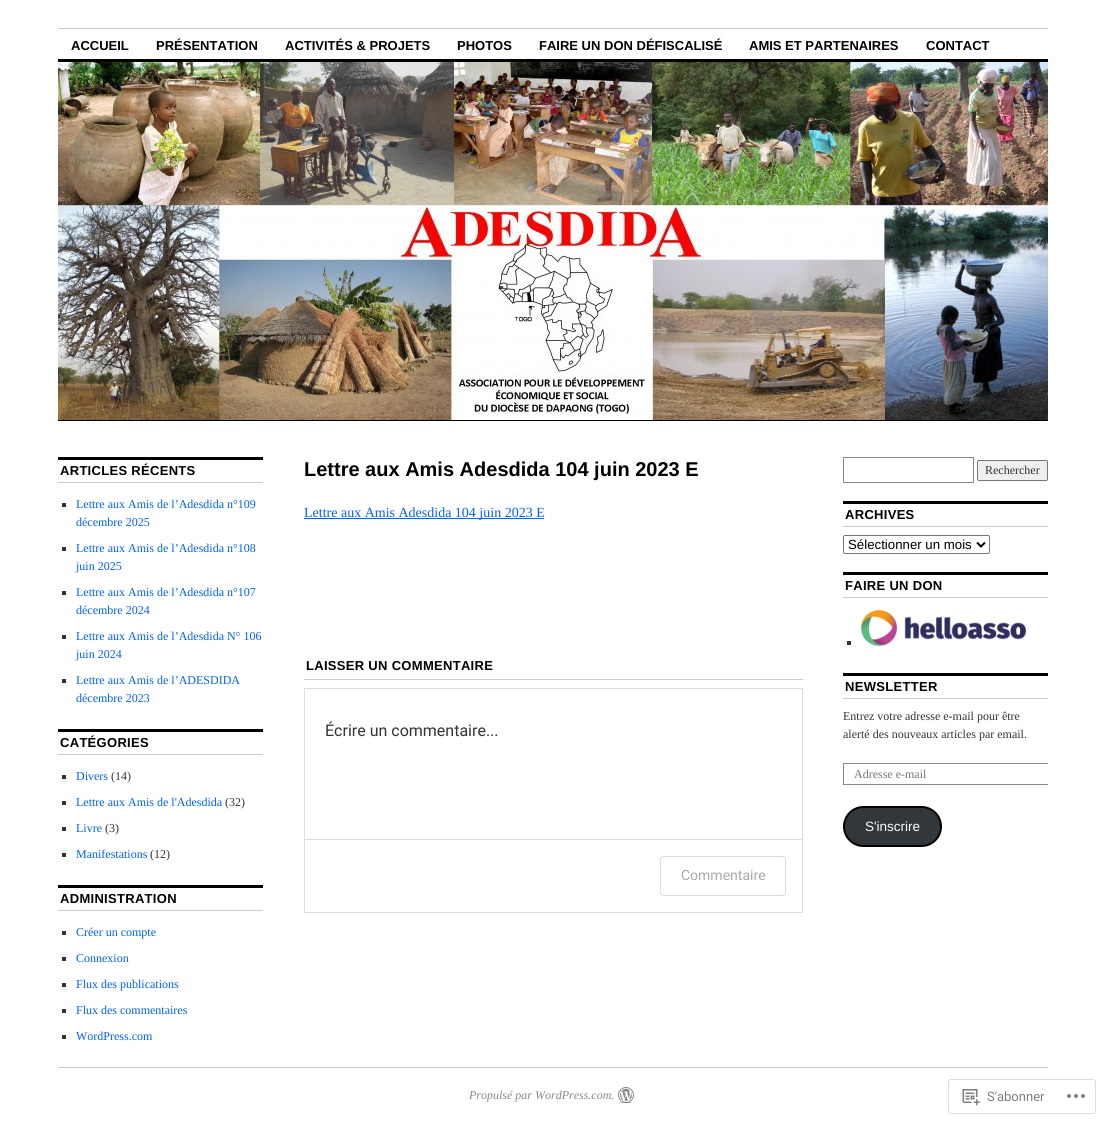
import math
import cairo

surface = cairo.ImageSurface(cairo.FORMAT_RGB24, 1106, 1124)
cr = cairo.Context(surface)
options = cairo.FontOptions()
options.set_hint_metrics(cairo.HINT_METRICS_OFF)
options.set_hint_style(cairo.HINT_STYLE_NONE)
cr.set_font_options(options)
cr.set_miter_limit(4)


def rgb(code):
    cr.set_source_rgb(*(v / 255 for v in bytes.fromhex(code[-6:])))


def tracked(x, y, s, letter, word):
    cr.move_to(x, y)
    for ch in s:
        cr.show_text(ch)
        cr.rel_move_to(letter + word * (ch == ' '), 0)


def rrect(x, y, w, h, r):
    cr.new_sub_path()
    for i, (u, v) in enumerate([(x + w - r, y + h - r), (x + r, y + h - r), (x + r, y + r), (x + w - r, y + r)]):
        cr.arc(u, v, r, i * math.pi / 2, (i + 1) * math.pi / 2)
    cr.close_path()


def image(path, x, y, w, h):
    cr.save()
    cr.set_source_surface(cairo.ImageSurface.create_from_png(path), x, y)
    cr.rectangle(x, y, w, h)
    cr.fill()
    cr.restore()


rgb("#ffffff")
cr.paint()
rgb("#cccccc")
cr.rectangle(58, 28, 990, 1)
cr.fill()
rgb("#000000")
cr.rectangle(58, 59, 990, 3)
cr.fill()
image("img/1.png", 58, 62, 990, 358)
for x, y, w, h, color in [
    (58, 420, 990, 1, "#000000"),
    (58, 457, 205, 3, "#000000"),
    (58, 482, 205, 1, "#cccccc"),
    (62, 503, 4, 4, "#333333"),
    (62, 547, 4, 4, "#333333"),
    (62, 591, 4, 4, "#333333"),
    (62, 635, 4, 4, "#333333"),
    (62, 679, 4, 4, "#333333"),
    (58, 729, 205, 3, "#000000"),
    (58, 754, 205, 1, "#cccccc"),
    (62, 775, 4, 4, "#333333"),
    (62, 801, 4, 4, "#333333"),
    (62, 827, 4, 4, "#333333"),
    (62, 853, 4, 4, "#333333"),
    (58, 885, 205, 3, "#000000"),
    (58, 910, 205, 1, "#cccccc"),
    (62, 931, 4, 4, "#333333"),
    (62, 957, 4, 4, "#333333"),
    (62, 983, 4, 4, "#333333"),
    (62, 1009, 4, 4, "#333333"),
    (62, 1035, 4, 4, "#333333"),
    (304, 518, 240, 1, "#0060ff"),
    (304, 679, 499, 1, "#cccccc"),
]:
    rgb(color)
    cr.rectangle(x, y, w, h)
    cr.fill()
cr.rectangle(304.5, 688.5, 498, 224)
rgb("#dcdcde")
cr.set_line_width(1)
cr.stroke()
cr.rectangle(305, 839, 497, 1)
cr.fill()
rrect(660.5, 856.5, 125, 39, 3.5)
cr.stroke()
cr.rectangle(843.5, 457.5, 130, 25)
rgb("#888888")
cr.stroke()
rgb("#efefef")
rrect(977.5, 460.5, 70, 20, 1.5)
cr.fill_preserve()
rgb("#767676")
cr.stroke()
rgb("#000000")
cr.rectangle(843, 501, 205, 3)
cr.fill()
rgb("#cccccc")
cr.rectangle(843, 526, 205, 1)
cr.fill()
rrect(843.5, 535.5, 146, 18, 1.5)
rgb("#767676")
cr.stroke()
cr.new_path()
cr.move_to(977, 542.5)
cr.line_to(981, 546.5)
cr.line_to(985, 542.5)
rgb("#000000")
cr.set_line_width(2)
cr.stroke()
for x, y, w, h, color in [
    (843, 572, 205, 3, "#000000"),
    (843, 597, 205, 1, "#cccccc"),
    (847, 641, 4, 4, "#333333"),
]:
    rgb(color)
    cr.rectangle(x, y, w, h)
    cr.fill()
image("img/2.png", 861, 610, 165, 36)
rgb("#000000")
cr.rectangle(843, 673, 205, 3)
cr.fill()
rgb("#cccccc")
cr.rectangle(843, 698, 205, 1)
cr.fill()
cr.save()
cr.rectangle(843, 457, 205, 410)
cr.clip()
cr.rectangle(843.5, 763.5, 216, 21)
rgb("#888888")
cr.set_line_width(1)
cr.stroke()
cr.restore()
rgb("#32373c")
rrect(844, 807, 97, 39, 19.5)
cr.fill_preserve()
rgb("#000000")
cr.stroke()
rgb("#cccccc")
cr.rectangle(58, 1067, 990, 1)
cr.fill()
image("img/3.png", 618, 1087, 16, 16)
rrect(948.5, 1079.5, 147, 34, 2.5)
rgb("#dddddf")
cr.set_line_width(1)
cr.stroke()
image("img/4.png", 962, 1089, 18, 17)
image("img/5.png", 1067, 1094, 18, 4)
cr.select_font_face("Liberation Sans", cairo.FONT_SLANT_NORMAL, cairo.FONT_WEIGHT_BOLD)
cr.set_font_size(13)
rgb("#000000")
for x, y, s in [
    (71, 50, "ACCUEIL"),
    (156, 50, "PRÉSENTATION"),
    (285, 50, "ACTIVITÉS & PROJETS"),
    (457, 50, "PHOTOS"),
    (539, 50, "FAIRE UN DON DÉFISCALISÉ"),
    (749, 50, "AMIS ET PARTENAIRES"),
    (926, 50, "CONTACT"),
]:
    cr.move_to(x, y)
    cr.show_text(s)
tracked(60, 475, "ARTICLES RÉCENTS", 0.3, 0)
cr.select_font_face("Liberation Serif")
cr.set_font_size(12)
rgb("#0060ff")
for x, y, s in [
    (76, 508, "Lettre aux Amis de l’Adesdida n°109"),
    (76, 526, "décembre 2025"),
    (76, 552, "Lettre aux Amis de l’Adesdida n°108"),
    (76, 570, "juin 2025"),
    (76, 596, "Lettre aux Amis de l’Adesdida n°107"),
    (76, 614, "décembre 2024"),
    (76, 640, "Lettre aux Amis de l’Adesdida N° 106"),
    (76, 658, "juin 2024"),
    (76, 684, "Lettre aux Amis de l’ADESDIDA"),
    (76, 702, "décembre 2023"),
]:
    cr.move_to(x, y)
    cr.show_text(s)
cr.select_font_face("Liberation Sans", cairo.FONT_SLANT_NORMAL, cairo.FONT_WEIGHT_BOLD)
cr.set_font_size(13)
rgb("#000000")
tracked(60, 747, "CATÉGORIES", 0.3, 0)
cr.select_font_face("Liberation Serif")
cr.set_font_size(12)
rgb("#0060ff")
cr.move_to(76, 780)
cr.show_text("Divers")
rgb("#333333")
cr.move_to(111, 780)
cr.show_text("(14)")
rgb("#0060ff")
cr.move_to(76, 806)
cr.show_text("Lettre aux Amis de l'Adesdida")
rgb("#333333")
cr.move_to(225, 806)
cr.show_text("(32)")
rgb("#0060ff")
cr.move_to(76, 832)
cr.show_text("Livre")
rgb("#333333")
cr.move_to(105, 832)
cr.show_text("(3)")
rgb("#0060ff")
cr.move_to(76, 858)
cr.show_text("Manifestations")
rgb("#333333")
cr.move_to(150, 858)
cr.show_text("(12)")
cr.select_font_face("Liberation Sans", cairo.FONT_SLANT_NORMAL, cairo.FONT_WEIGHT_BOLD)
cr.set_font_size(13)
rgb("#000000")
tracked(60, 903, "ADMINISTRATION", 0.3, 0)
cr.select_font_face("Liberation Serif")
cr.set_font_size(12)
rgb("#0060ff")
for x, y, s in [
    (76, 936, "Créer un compte"),
    (76, 962, "Connexion"),
    (76, 988, "Flux des publications"),
    (76, 1014, "Flux des commentaires"),
    (76, 1040, "WordPress.com"),
]:
    cr.move_to(x, y)
    cr.show_text(s)
cr.select_font_face("Liberation Sans", cairo.FONT_SLANT_NORMAL, cairo.FONT_WEIGHT_BOLD)
cr.set_font_size(20)
rgb("#000000")
cr.move_to(304, 476)
cr.show_text("Lettre aux Amis Adesdida 104 juin 2023 E")
cr.select_font_face("Liberation Serif")
cr.set_font_size(14)
rgb("#0060ff")
cr.move_to(304, 517)
cr.show_text("Lettre aux Amis Adesdida 104 juin 2023 E")
cr.select_font_face("Liberation Sans", cairo.FONT_SLANT_NORMAL, cairo.FONT_WEIGHT_BOLD)
cr.set_font_size(13)
rgb("#000000")
tracked(306, 670, "LAISSER UN COMMENTAIRE", 0.3, 0)
cr.select_font_face("Roboto")
cr.set_font_size(16)
rgb("#333333")
cr.move_to(325, 736)
cr.show_text("Écrire un commentaire...")
cr.set_font_size(14)
rgb("#a7aaad")
cr.move_to(681, 880)
cr.show_text("Commentaire")
cr.select_font_face("Liberation Serif")
cr.set_font_size(12)
rgb("#333333")
cr.move_to(985, 474)
cr.show_text("Rechercher")
cr.select_font_face("Liberation Sans", cairo.FONT_SLANT_NORMAL, cairo.FONT_WEIGHT_BOLD)
cr.set_font_size(13)
rgb("#000000")
tracked(845, 519, "ARCHIVES", 0.3, 0)
cr.select_font_face("Liberation Sans")
cr.set_font_size(13.25)
cr.move_to(848, 549)
cr.show_text("Sélectionner un mois")
cr.select_font_face("Liberation Sans", cairo.FONT_SLANT_NORMAL, cairo.FONT_WEIGHT_BOLD)
cr.set_font_size(13)
tracked(845, 590, "FAIRE UN DON", 0.3, 0)
tracked(845, 691, "NEWSLETTER", 0.3, 0)
cr.select_font_face("Liberation Serif")
cr.set_font_size(12)
rgb("#333333")
cr.move_to(843, 720)
cr.show_text("Entrez votre adresse e-mail pour être")
cr.move_to(843, 738)
cr.show_text("alerté des nouveaux articles par email.")
rgb("#757575")
cr.move_to(854, 778)
cr.show_text("Adresse e-mail")
cr.select_font_face("Liberation Sans")
cr.set_font_size(13.5)
rgb("#ffffff")
cr.move_to(865, 831)
cr.show_text("S'inscrire")
cr.select_font_face("Liberation Serif", cairo.FONT_SLANT_ITALIC)
cr.set_font_size(12)
rgb("#888888")
cr.move_to(469, 1099)
cr.show_text("Propulsé par WordPress.com.")
cr.select_font_face("Roboto")
cr.set_font_size(13)
rgb("#7b7f85")
cr.move_to(987, 1101)
cr.show_text("S'abonner")
surface.write_to_png("page.png")
